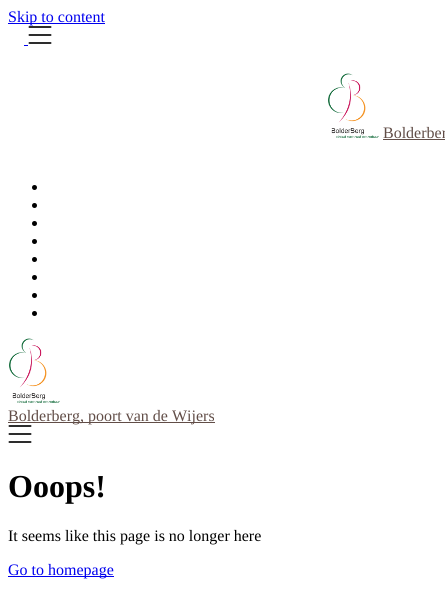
import math
import cairo

surface = cairo.ImageSurface(cairo.FORMAT_RGB24, 445, 616)
cr = cairo.Context(surface)
options = cairo.FontOptions()
options.set_hint_metrics(cairo.HINT_METRICS_OFF)
options.set_hint_style(cairo.HINT_STYLE_NONE)
cr.set_font_options(options)
cr.set_miter_limit(4)


def rgb(code):
    cr.set_source_rgb(*(v / 255 for v in bytes.fromhex(code[-6:])))


def image(path, x, y, w, h):
    cr.save()
    cr.set_source_surface(cairo.ImageSurface.create_from_png(path), x, y)
    cr.rectangle(x, y, w, h)
    cr.fill()
    cr.restore()


rgb("#ffffff")
cr.paint()
rgb("#0000ee")
cr.rectangle(8, 23, 97, 1)
cr.fill()
cr.new_path()
cr.move_to(29.5, 27)
cr.line_to(50.5, 27)
cr.move_to(29.5, 35)
cr.line_to(50.5, 35)
cr.move_to(29.5, 43)
cr.line_to(50.5, 43)
rgb("#2d2d2d")
cr.set_line_cap(cairo.LINE_CAP_ROUND)
cr.set_line_join(cairo.LINE_JOIN_ROUND)
cr.stroke()
rgb("#0000ee")
cr.rectangle(24, 45, 4, 1)
cr.fill()
image("img/1.png", 328, 73, 51, 65)
rgb("#614d47")
cr.rectangle(383, 139, 62, 1)
cr.fill()
rgb("#000000")
cr.arc(34.5, 187.5, 2.5, 0, 2 * math.pi)
cr.fill()
cr.arc(34.5, 205.5, 2.5, 0, 2 * math.pi)
cr.fill()
cr.arc(34.5, 223.5, 2.5, 0, 2 * math.pi)
cr.fill()
cr.arc(34.5, 241.5, 2.5, 0, 2 * math.pi)
cr.fill()
cr.arc(34.5, 259.5, 2.5, 0, 2 * math.pi)
cr.fill()
cr.arc(34.5, 277.5, 2.5, 0, 2 * math.pi)
cr.fill()
cr.arc(34.5, 295.5, 2.5, 0, 2 * math.pi)
cr.fill()
cr.arc(34.5, 313.5, 2.5, 0, 2 * math.pi)
cr.fill()
image("img/1.png", 9, 338, 51, 65)
rgb("#614d47")
cr.rectangle(8, 422, 207, 1)
cr.fill()
cr.new_path()
cr.move_to(9.5, 426)
cr.line_to(30.5, 426)
cr.move_to(9.5, 434)
cr.line_to(30.5, 434)
cr.move_to(9.5, 442)
cr.line_to(30.5, 442)
rgb("#2d2d2d")
cr.stroke()
rgb("#0000ee")
cr.rectangle(8, 576, 106, 1)
cr.fill()
cr.select_font_face("Liberation Serif")
cr.set_font_size(16)
cr.move_to(8, 22)
cr.show_text("Skip to content")
rgb("#614d47")
cr.move_to(383, 138)
cr.show_text("Bolderber")
cr.move_to(8, 421)
cr.show_text("Bolderberg, poort van de Wijers")
cr.select_font_face("Liberation Serif", cairo.FONT_SLANT_NORMAL, cairo.FONT_WEIGHT_BOLD)
cr.set_font_size(32)
rgb("#000000")
cr.move_to(8, 497)
cr.show_text("Ooops!")
cr.select_font_face("Liberation Serif")
cr.set_font_size(16)
cr.move_to(8, 541)
cr.show_text("It seems like this page is no longer here")
rgb("#0000ee")
cr.move_to(8, 575)
cr.show_text("Go to homepage")
surface.write_to_png("page.png")
